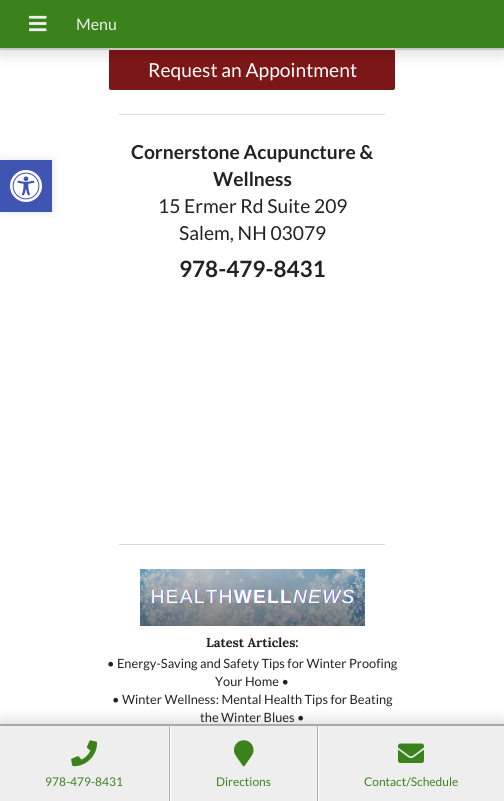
import math
import cairo

surface = cairo.ImageSurface(cairo.FORMAT_RGB24, 504, 801)
cr = cairo.Context(surface)
options = cairo.FontOptions()
options.set_hint_metrics(cairo.HINT_METRICS_OFF)
options.set_hint_style(cairo.HINT_STYLE_NONE)
cr.set_font_options(options)
cr.set_miter_limit(4)


def rgb(code):
    cr.set_source_rgb(*(v / 255 for v in bytes.fromhex(code[-6:])))


def rrect(x, y, w, h, r):
    cr.new_sub_path()
    for i, (u, v) in enumerate([(x + w - r, y + h - r), (x + r, y + h - r), (x + r, y + r), (x + w - r, y + r)]):
        cr.arc(u, v, r, i * math.pi / 2, (i + 1) * math.pi / 2)
    cr.close_path()


def soft_shadow(x, y, w, h, r, blur, alpha):
    cr.push_group_with_content(cairo.CONTENT_ALPHA)
    cr.set_operator(cairo.OPERATOR_SOURCE)
    for i in range(15, -16, -2):
        e = blur * i / 6
        if min(w, h) + 2 * e > 0:
            cr.set_source_rgba(0, 0, 0, alpha * math.erfc((i - 1) / 8.5) / 2)
            rrect(x - e, y - e, w + 2 * e, h + 2 * e, max(0, min(r + e + blur * .6, min(w, h) / 2 + e)))
            cr.fill()
    cr.mask(cr.pop_group())


def image(path, x, y, w, h):
    cr.save()
    cr.set_source_surface(cairo.ImageSurface.create_from_png(path), x, y)
    cr.rectangle(x, y, w, h)
    cr.fill()
    cr.restore()


rgb("#ffffff")
cr.paint()
rgb("#000000")
soft_shadow(0, 160, 52, 52, 0, 5, 0.1)
rgb("#4054b2")
cr.rectangle(0, 160, 52, 52)
cr.fill()
image("img/1.png", 10, 170, 32, 32)
rgb("#7c1717")
rrect(109, 48, 286, 42, 2)
cr.fill()
rgb("#000000")
soft_shadow(0, 3, 504, 50, 0, 8, 0.15)
rgb("#3b821d")
cr.rectangle(0, 0, 504, 48)
cr.fill()
rgb("#c6c6c6")
cr.rectangle(0, 48, 504, 2)
cr.fill()
image("img/2.png", 29, 15, 18, 17)
rgb("#d9d9d9")
cr.rectangle(119, 114, 266, 1)
cr.fill()
cr.rectangle(119, 544, 266, 1)
cr.fill()
image("img/3.png", 140, 569, 225, 57)
rgb("#000000")
soft_shadow(0, 721, 504, 77, 0, 8, 0.15)
for x, y, w, h, color in [
    (0, 726, 504, 75, "#eeeeee"),
    (0, 724, 504, 2, "#aaaaaa"),
    (169, 726, 1, 75, "#b3b3b3"),
]:
    rgb(color)
    cr.rectangle(x, y, w, h)
    cr.fill()
image("img/4.png", 71, 740, 26, 27)
cr.rectangle(317, 726, 1, 75)
cr.fill()
rgb("#fdfdfd")
cr.rectangle(170, 726, 1, 75)
cr.fill()
image("img/5.png", 234, 740, 20, 27)
cr.rectangle(318, 726, 1, 75)
cr.fill()
image("img/6.png", 398, 743, 26, 20)
cr.select_font_face("Lato")
cr.set_font_size(16)
rgb("#eeeeee")
cr.move_to(76, 30)
cr.show_text("Menu")
cr.set_font_size(19.25)
rgb("#ffffff")
cr.move_to(148, 77)
cr.show_text("Request an Appointment")
cr.select_font_face("Lato", cairo.FONT_SLANT_NORMAL, cairo.FONT_WEIGHT_BOLD)
rgb("#222222")
cr.move_to(131, 159)
cr.show_text("Cornerstone Acupuncture &")
cr.move_to(213, 186)
cr.show_text("Wellness")
cr.select_font_face("Lato")
cr.move_to(158, 213)
cr.show_text("15 Ermer Rd Suite 209")
cr.move_to(179, 240)
cr.show_text("Salem, NH 03079")
cr.select_font_face("Lato", cairo.FONT_SLANT_NORMAL, cairo.FONT_WEIGHT_BOLD)
cr.set_font_size(22.5)
cr.move_to(179, 277)
cr.show_text("978-479-8431")
cr.select_font_face("Lora", cairo.FONT_SLANT_NORMAL, cairo.FONT_WEIGHT_BOLD)
cr.set_font_size(12.8)
cr.move_to(206, 647)
cr.show_text("Latest Articles:")
cr.select_font_face("Lato")
for x, y, s in [
    (107, 668, "• Energy-Saving and Safety Tips for Winter Proofing"),
    (215, 686, "Your Home •"),
    (112, 704, "• Winter Wellness: Mental Health Tips for Beating"),
    (200, 722, "the Winter Blues •"),
]:
    cr.move_to(x, y)
    cr.show_text(s)
cr.set_font_size(12)
rgb("#3b821d")
for x, y, s in [
    (45, 786, "978-479-8431"),
    (216, 786, "Directions"),
    (364, 786, "Contact/Schedule"),
]:
    cr.move_to(x, y)
    cr.show_text(s)
surface.write_to_png("page.png")
